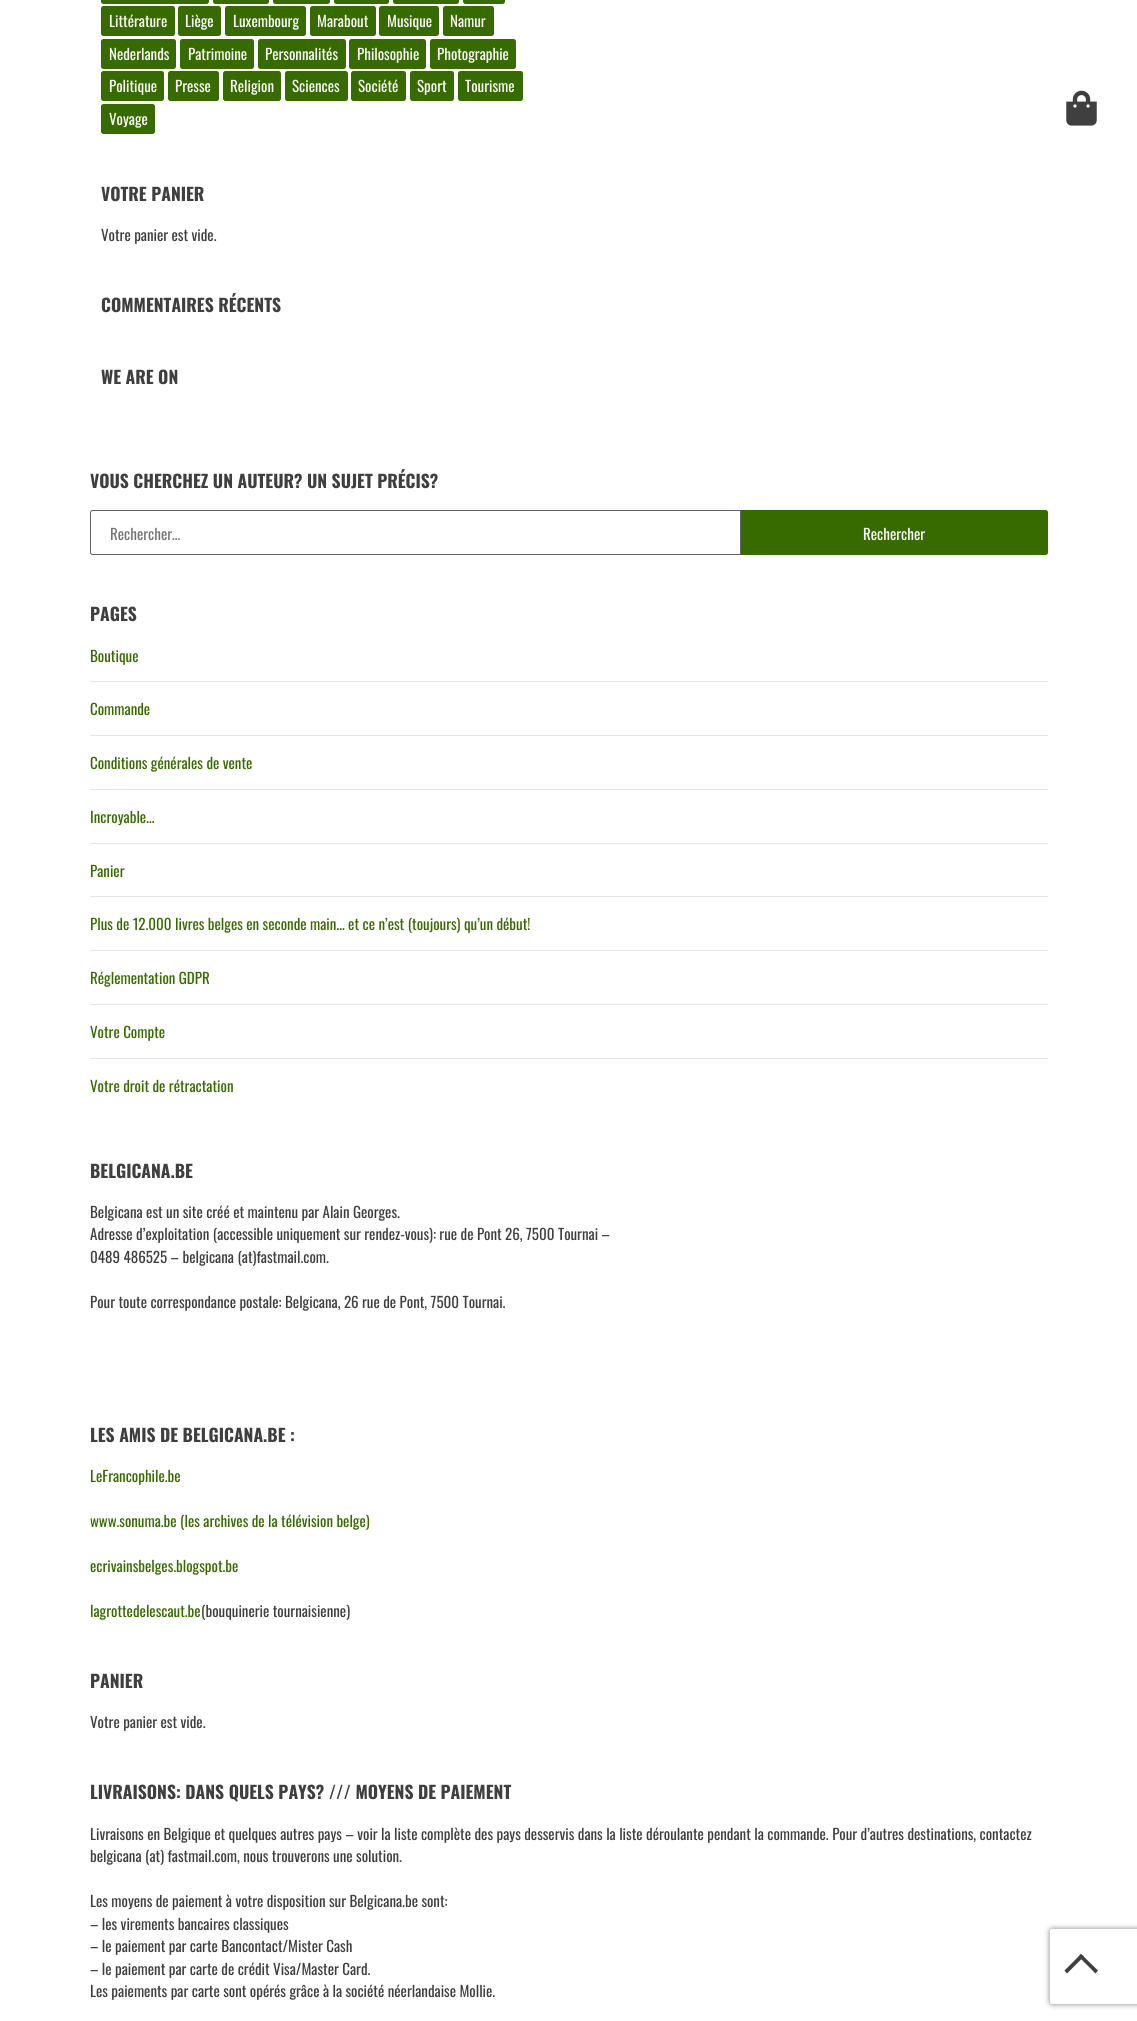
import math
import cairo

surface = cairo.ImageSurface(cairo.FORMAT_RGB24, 1137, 2021)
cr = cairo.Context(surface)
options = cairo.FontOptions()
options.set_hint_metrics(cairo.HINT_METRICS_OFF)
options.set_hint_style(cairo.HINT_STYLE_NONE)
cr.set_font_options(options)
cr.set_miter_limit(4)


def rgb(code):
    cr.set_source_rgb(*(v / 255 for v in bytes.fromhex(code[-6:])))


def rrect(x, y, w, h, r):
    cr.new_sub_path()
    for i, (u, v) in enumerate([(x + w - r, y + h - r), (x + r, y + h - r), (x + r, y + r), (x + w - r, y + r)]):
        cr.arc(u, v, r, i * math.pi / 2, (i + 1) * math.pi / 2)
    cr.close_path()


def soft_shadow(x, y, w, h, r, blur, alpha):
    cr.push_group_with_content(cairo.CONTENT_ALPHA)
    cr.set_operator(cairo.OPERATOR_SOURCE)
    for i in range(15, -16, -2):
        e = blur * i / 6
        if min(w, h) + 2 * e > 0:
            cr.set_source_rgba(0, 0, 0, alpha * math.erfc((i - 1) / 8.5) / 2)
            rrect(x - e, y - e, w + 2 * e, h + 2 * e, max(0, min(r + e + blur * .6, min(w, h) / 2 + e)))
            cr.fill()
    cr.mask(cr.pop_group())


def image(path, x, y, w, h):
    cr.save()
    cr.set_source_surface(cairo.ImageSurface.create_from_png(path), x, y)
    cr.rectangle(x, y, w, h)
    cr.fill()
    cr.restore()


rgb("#ffffff")
cr.paint()
rgb("#376b00")
rrect(101, -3, 108, 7, 2.5)
cr.fill()
rrect(213, -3, 56, 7, 2.5)
cr.fill()
rrect(273, -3, 57, 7, 2.5)
cr.fill()
rrect(334, -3, 55, 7, 2.5)
cr.fill()
rrect(393, -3, 66, 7, 2.5)
cr.fill()
rrect(463, -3, 42, 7, 2.5)
cr.fill()
rrect(101, 6, 74, 30, 2.5)
cr.fill()
rrect(178, 6, 43, 30, 2.5)
cr.fill()
rrect(225, 6, 81, 30, 2.5)
cr.fill()
rrect(310, 6, 66, 30, 2.5)
cr.fill()
rrect(379, 6, 60, 30, 2.5)
cr.fill()
rrect(443, 6, 51, 30, 2.5)
cr.fill()
rrect(101, 39, 75, 30, 2.5)
cr.fill()
rrect(180, 39, 74, 30, 2.5)
cr.fill()
rrect(258, 39, 88, 30, 2.5)
cr.fill()
rrect(349, 39, 77, 30, 2.5)
cr.fill()
rrect(430, 39, 86, 30, 2.5)
cr.fill()
rrect(101, 71, 63, 30, 2.5)
cr.fill()
rrect(168, 71, 51, 30, 2.5)
cr.fill()
rrect(223, 71, 58, 30, 2.5)
cr.fill()
rrect(285, 71, 63, 30, 2.5)
cr.fill()
rrect(351, 71, 55, 30, 2.5)
cr.fill()
rrect(410, 71, 44, 30, 2.5)
cr.fill()
rrect(458, 71, 65, 30, 2.5)
cr.fill()
rrect(101, 104, 54, 30, 2.5)
cr.fill()
cr.new_path()
cr.move_to(92.5, 510.5)
cr.line_to(740.5, 510.5)
cr.line_to(740.5, 554.5)
cr.line_to(92.5, 554.5)
cr.curve_to(91.5, 554.5, 90.5, 553.5, 90.5, 552.5)
cr.line_to(90.5, 512.5)
cr.curve_to(90.5, 511.5, 91.5, 510.5, 92.5, 510.5)
cr.close_path()
rgb("#636363")
cr.set_line_width(1)
cr.stroke()
rgb("#376b00")
cr.new_path()
cr.move_to(741, 510)
cr.line_to(1045.5, 510)
cr.curve_to(1047, 510, 1048, 511, 1048, 512.5)
cr.line_to(1048, 552.5)
cr.curve_to(1048, 554, 1047, 555, 1045.5, 555)
cr.line_to(741, 555)
cr.close_path()
cr.fill()
for x, y, w, h, color in [
    (90, 681, 958, 1, "#e6e6e6"),
    (90, 735, 958, 1, "#e6e6e6"),
    (90, 789, 958, 1, "#e6e6e6"),
    (90, 843, 958, 1, "#e6e6e6"),
    (90, 896, 958, 1, "#e6e6e6"),
    (90, 950, 958, 1, "#e6e6e6"),
    (90, 1004, 958, 1, "#e6e6e6"),
    (90, 1058, 958, 1, "#e6e6e6"),
]:
    rgb(color)
    cr.rectangle(x, y, w, h)
    cr.fill()
image("img/1.png", 1066, 90, 31, 36)
cr.save()
cr.set_fill_rule(cairo.FILL_RULE_EVEN_ODD)
cr.new_path()
cr.move_to(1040, 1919)
cr.line_to(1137, 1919)
cr.line_to(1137, 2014)
cr.line_to(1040, 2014)
cr.close_path()
cr.move_to(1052.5, 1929)
cr.line_to(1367.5, 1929)
cr.curve_to(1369, 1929, 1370, 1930, 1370, 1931.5)
cr.line_to(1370, 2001.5)
cr.curve_to(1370, 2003, 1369, 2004, 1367.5, 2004)
cr.line_to(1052.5, 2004)
cr.curve_to(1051, 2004, 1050, 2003, 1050, 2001.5)
cr.line_to(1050, 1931.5)
cr.curve_to(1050, 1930, 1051, 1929, 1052.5, 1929)
cr.close_path()
cr.clip()
rgb("#808080")
soft_shadow(1050, 1929, 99, 75, 2.5, 3, 1)
cr.restore()
rgb("#3f3f3f")
cr.new_path()
cr.move_to(1067, 1973.5)
cr.line_to(1064.5, 1970.5)
cr.line_to(1081, 1954)
cr.line_to(1084, 1956.5)
cr.close_path()
cr.fill()
cr.new_path()
cr.move_to(1095.5, 1973.5)
cr.line_to(1078.5, 1956.5)
cr.line_to(1081, 1954)
cr.line_to(1098, 1970.5)
cr.close_path()
cr.fill()
cr.select_font_face("Oswald")
cr.set_font_size(15)
rgb("#ffffff")
for x, y, s in [
    (109, 27, "Littérature"),
    (185, 27, "Liège"),
    (233, 27, "Luxembourg"),
    (317, 27, "Marabout"),
    (387, 27, "Musique"),
    (450, 27, "Namur"),
    (109, 60, "Nederlands"),
    (188, 60, "Patrimoine"),
    (265, 60, "Personnalités"),
    (357, 60, "Philosophie"),
    (437, 60, "Photographie"),
    (109, 92, "Politique"),
    (175, 92, "Presse"),
    (230, 92, "Religion"),
    (292, 92, "Sciences"),
    (358, 92, "Société"),
    (417, 92, "Sport"),
    (465, 92, "Tourisme"),
    (109, 125, "Voyage"),
]:
    cr.move_to(x, y)
    cr.show_text(s)
cr.select_font_face("Oswald", cairo.FONT_SLANT_NORMAL, cairo.FONT_WEIGHT_BOLD)
cr.set_font_size(17.55)
rgb("#3f3f3f")
cr.move_to(101, 201)
cr.show_text("VOTRE PANIER")
cr.select_font_face("Oswald")
cr.set_font_size(15)
cr.move_to(101, 241)
cr.show_text("Votre panier est vide.")
cr.select_font_face("Oswald", cairo.FONT_SLANT_NORMAL, cairo.FONT_WEIGHT_BOLD)
cr.set_font_size(17.55)
for x, y, s in [
    (101, 312, "COMMENTAIRES RÉCENTS"),
    (101, 384, "WE ARE ON"),
    (90, 488, "VOUS CHERCHEZ UN AUTEUR? UN SUJET PRÉCIS?"),
]:
    cr.move_to(x, y)
    cr.show_text(s)
cr.select_font_face("Oswald")
cr.set_font_size(15)
rgb("#757575")
cr.move_to(110, 540)
cr.show_text("Rechercher…")
rgb("#ffffff")
cr.move_to(863, 540)
cr.show_text("Rechercher")
cr.select_font_face("Oswald", cairo.FONT_SLANT_NORMAL, cairo.FONT_WEIGHT_BOLD)
cr.set_font_size(17.55)
rgb("#3f3f3f")
cr.move_to(90, 621)
cr.show_text("PAGES")
cr.select_font_face("Oswald")
cr.set_font_size(15)
rgb("#376b00")
for x, y, s in [
    (90, 662, "Boutique"),
    (90, 715, "Commande"),
    (90, 769, "Conditions générales de vente"),
    (90, 823, "Incroyable…"),
    (90, 877, "Panier"),
    (90, 930, "Plus de 12.000 livres belges en seconde main… et ce n’est (toujours) qu’un début!"),
    (90, 984, "Réglementation GDPR"),
    (90, 1038, "Votre Compte"),
    (90, 1092, "Votre droit de rétractation"),
]:
    cr.move_to(x, y)
    cr.show_text(s)
cr.select_font_face("Oswald", cairo.FONT_SLANT_NORMAL, cairo.FONT_WEIGHT_BOLD)
cr.set_font_size(17.55)
rgb("#3f3f3f")
cr.move_to(90, 1178)
cr.show_text("BELGICANA.BE")
cr.select_font_face("Oswald")
cr.set_font_size(15)
for x, y, s in [
    (90, 1218, "Belgicana est un site créé et maintenu par Alain Georges."),
    (90, 1240, "Adresse d’exploitation (accessible uniquement sur rendez-vous): rue de Pont 26, 7500 Tournai –"),
    (90, 1263, "0489 486525 – belgicana (at)fastmail.com."),
    (90, 1308, "Pour toute correspondance postale: Belgicana, 26 rue de Pont, 7500 Tournai."),
]:
    cr.move_to(x, y)
    cr.show_text(s)
cr.select_font_face("Oswald", cairo.FONT_SLANT_NORMAL, cairo.FONT_WEIGHT_BOLD)
cr.set_font_size(17.55)
cr.move_to(90, 1442)
cr.show_text("LES AMIS DE BELGICANA.BE :")
cr.select_font_face("Oswald")
cr.set_font_size(15)
rgb("#376b00")
for x, y, s in [
    (90, 1482, "LeFrancophile.be"),
    (90, 1527, "www.sonuma.be (les archives de la télévision belge)"),
    (90, 1572, "ecrivainsbelges.blogspot.be"),
    (90, 1617, "lagrottedelescaut.be"),
]:
    cr.move_to(x, y)
    cr.show_text(s)
rgb("#3f3f3f")
cr.move_to(201, 1617)
cr.show_text("(bouquinerie tournaisienne)")
cr.select_font_face("Oswald", cairo.FONT_SLANT_NORMAL, cairo.FONT_WEIGHT_BOLD)
cr.set_font_size(17.55)
cr.move_to(90, 1688)
cr.show_text("PANIER")
cr.select_font_face("Oswald")
cr.set_font_size(15)
cr.move_to(90, 1728)
cr.show_text("Votre panier est vide.")
cr.select_font_face("Oswald", cairo.FONT_SLANT_NORMAL, cairo.FONT_WEIGHT_BOLD)
cr.set_font_size(17.55)
cr.move_to(90, 1799)
cr.show_text("LIVRAISONS: DANS QUELS PAYS? /// MOYENS DE PAIEMENT")
cr.select_font_face("Oswald")
cr.set_font_size(15)
for x, y, s in [
    (90, 1840, "Livraisons en Belgique et quelques autres pays – voir la liste complète des pays desservis dans la liste déroulante pendant la commande. Pour d’autres destinations, contactez"),
    (90, 1862, "belgicana (at) fastmail.com, nous trouverons une solution."),
    (90, 1907, "Les moyens de paiement à votre disposition sur Belgicana.be sont:"),
    (90, 1930, "– les virements bancaires classiques"),
    (90, 1952, "– le paiement par carte Bancontact/Mister Cash"),
    (90, 1975, "– le paiement par carte de crédit Visa/Master Card."),
    (90, 1997, "Les paiements par carte sont opérés grâce à la société néerlandaise Mollie."),
]:
    cr.move_to(x, y)
    cr.show_text(s)
surface.write_to_png("page.png")
